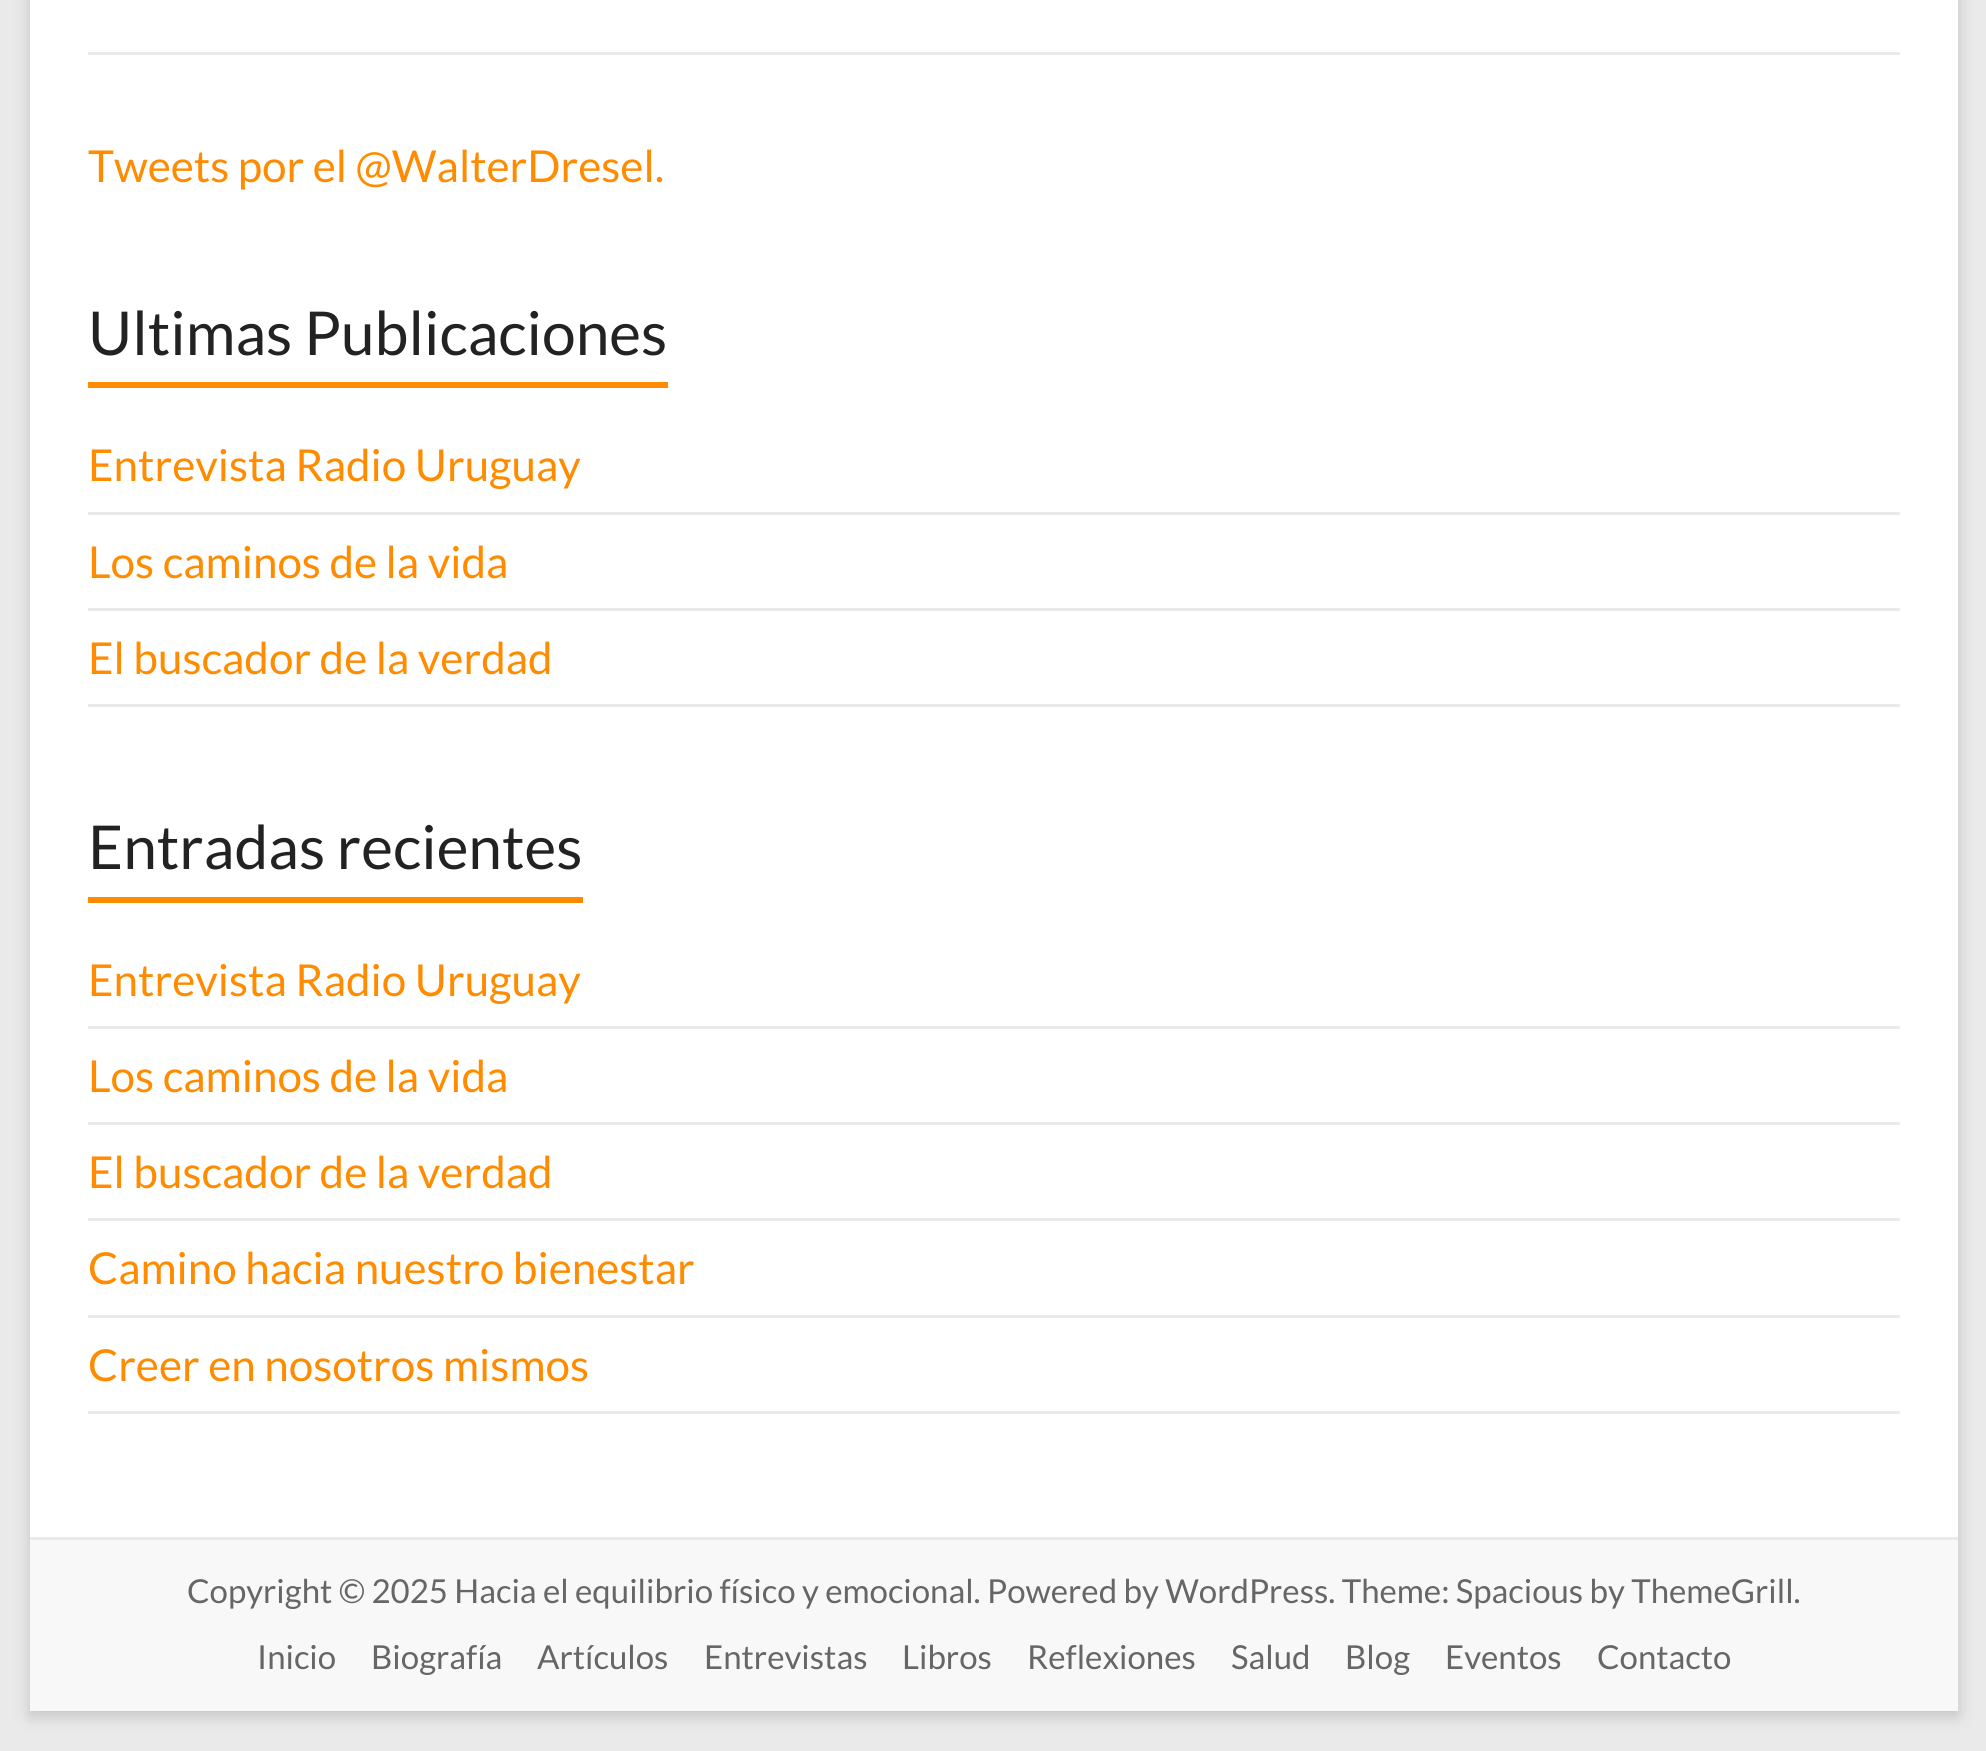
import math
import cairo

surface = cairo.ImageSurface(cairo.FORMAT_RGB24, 1986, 1751)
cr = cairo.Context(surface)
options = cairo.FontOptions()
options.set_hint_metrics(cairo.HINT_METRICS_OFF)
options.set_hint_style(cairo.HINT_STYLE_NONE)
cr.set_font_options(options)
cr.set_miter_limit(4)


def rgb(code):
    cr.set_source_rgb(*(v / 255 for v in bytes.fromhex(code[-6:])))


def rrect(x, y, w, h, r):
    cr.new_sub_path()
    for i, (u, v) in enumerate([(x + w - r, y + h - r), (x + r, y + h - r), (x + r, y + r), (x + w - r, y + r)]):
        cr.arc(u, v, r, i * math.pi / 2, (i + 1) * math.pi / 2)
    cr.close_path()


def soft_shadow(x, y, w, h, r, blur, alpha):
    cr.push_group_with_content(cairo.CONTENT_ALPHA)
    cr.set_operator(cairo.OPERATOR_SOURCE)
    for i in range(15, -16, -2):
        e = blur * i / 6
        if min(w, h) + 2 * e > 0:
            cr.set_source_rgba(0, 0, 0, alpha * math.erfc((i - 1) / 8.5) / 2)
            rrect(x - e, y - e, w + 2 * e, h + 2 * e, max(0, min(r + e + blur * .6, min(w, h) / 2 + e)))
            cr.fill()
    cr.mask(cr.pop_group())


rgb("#eaeaea")
cr.paint()
rgb("#646464")
soft_shadow(30, -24, 1928, 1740, 0, 8, 0.3)
for x, y, w, h, color in [
    (30, 0, 1928, 1537, "#ffffff"),
    (88, 52, 1812, 3, "#eaeaea"),
    (88, 382, 580, 6, "#ff8c00"),
    (88, 512, 1812, 3, "#eaeaea"),
    (88, 608, 1812, 3, "#eaeaea"),
    (88, 704, 1812, 3, "#eaeaea"),
    (88, 897, 495, 6, "#ff8c00"),
    (88, 1026, 1812, 3, "#eaeaea"),
    (88, 1122, 1812, 3, "#eaeaea"),
    (88, 1218, 1812, 3, "#eaeaea"),
    (88, 1315, 1812, 3, "#eaeaea"),
    (88, 1411, 1812, 3, "#eaeaea"),
    (30, 1540, 1928, 171, "#f8f8f8"),
    (30, 1537, 1928, 3, "#eaeaea"),
]:
    rgb(color)
    cr.rectangle(x, y, w, h)
    cr.fill()
cr.select_font_face("Lato")
cr.set_font_size(44)
rgb("#ff8c00")
cr.move_to(88, 182)
cr.show_text("Tweets por el @WalterDresel.")
cr.set_font_size(60.5)
rgb("#222222")
cr.move_to(88, 355)
cr.show_text("Ultimas Publicaciones")
cr.set_font_size(44)
rgb("#ff8c00")
for x, y, s in [
    (88, 481, "Entrevista Radio Uruguay"),
    (88, 578, "Los caminos de la vida"),
    (88, 674, "El buscador de la verdad"),
]:
    cr.move_to(x, y)
    cr.show_text(s)
cr.set_font_size(60.5)
rgb("#222222")
cr.move_to(88, 869)
cr.show_text("Entradas recientes")
cr.set_font_size(44)
rgb("#ff8c00")
for x, y, s in [
    (88, 996, "Entrevista Radio Uruguay"),
    (88, 1092, "Los caminos de la vida"),
    (88, 1188, "El buscador de la verdad"),
    (88, 1284, "Camino hacia nuestro bienestar"),
    (88, 1381, "Creer en nosotros mismos"),
]:
    cr.move_to(x, y)
    cr.show_text(s)
cr.set_font_size(33)
rgb("#666666")
for x, y, s in [
    (187, 1603, "Copyright © 2025 Hacia el equilibrio físico y emocional. Powered by WordPress. Theme: Spacious by ThemeGrill."),
    (257, 1669, "Inicio"),
    (371, 1669, "Biografía"),
    (537, 1669, "Artículos"),
    (704, 1669, "Entrevistas"),
    (902, 1669, "Libros"),
    (1027, 1669, "Reflexiones"),
    (1231, 1669, "Salud"),
    (1345, 1669, "Blog"),
    (1445, 1669, "Eventos"),
    (1597, 1669, "Contacto"),
]:
    cr.move_to(x, y)
    cr.show_text(s)
surface.write_to_png("page.png")
